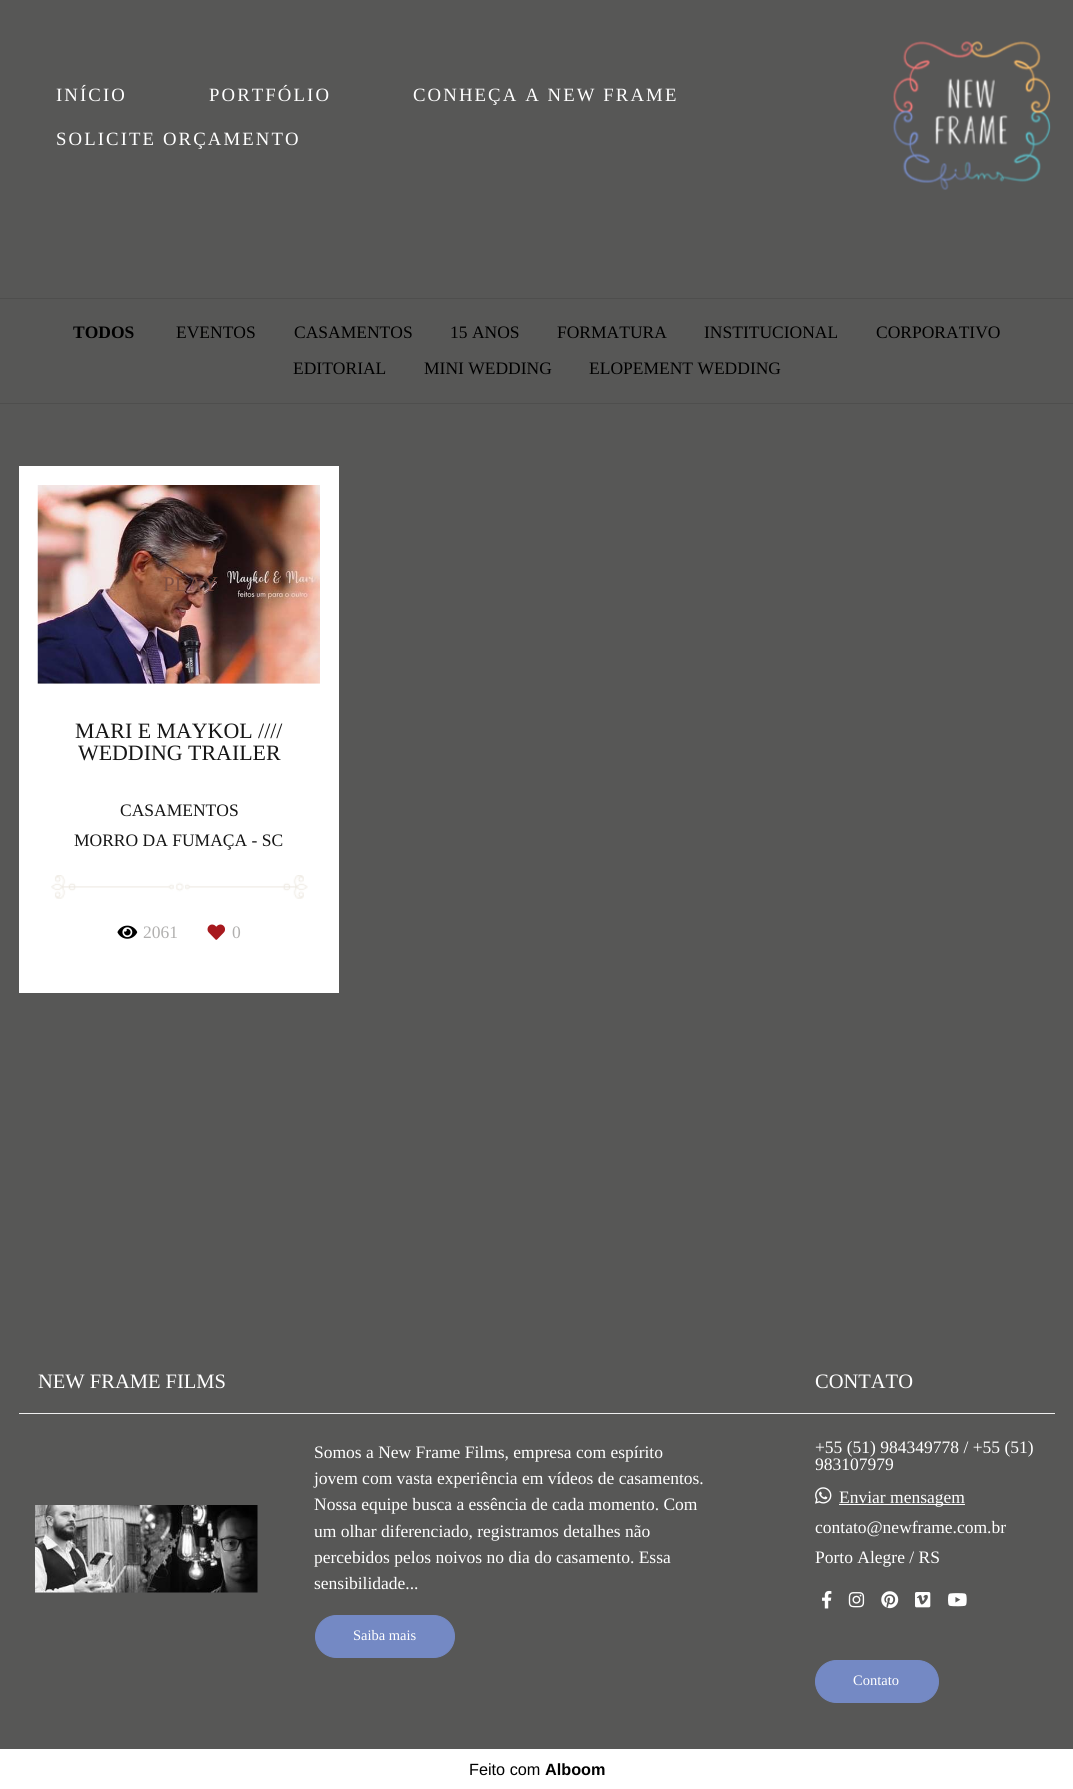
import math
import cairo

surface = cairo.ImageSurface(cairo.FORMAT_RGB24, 1073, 1789)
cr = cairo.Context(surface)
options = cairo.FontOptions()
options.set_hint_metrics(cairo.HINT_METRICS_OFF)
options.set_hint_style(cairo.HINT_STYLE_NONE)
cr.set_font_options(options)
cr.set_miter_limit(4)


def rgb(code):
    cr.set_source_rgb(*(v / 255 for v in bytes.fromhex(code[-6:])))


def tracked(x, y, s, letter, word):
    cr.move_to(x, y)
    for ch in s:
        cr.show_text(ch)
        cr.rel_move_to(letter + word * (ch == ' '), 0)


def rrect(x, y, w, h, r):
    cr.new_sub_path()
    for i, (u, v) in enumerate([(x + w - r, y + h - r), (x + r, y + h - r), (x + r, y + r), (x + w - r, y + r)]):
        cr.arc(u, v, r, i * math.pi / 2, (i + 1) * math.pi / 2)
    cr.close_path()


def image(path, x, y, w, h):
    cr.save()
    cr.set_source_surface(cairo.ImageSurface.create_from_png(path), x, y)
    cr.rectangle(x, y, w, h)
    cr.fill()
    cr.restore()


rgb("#575756")
cr.paint()
image("img/1.png", 893, 41, 158, 149)
for x, y, w, h, color in [
    (0, 298, 1073, 1, "#4e4e4d"),
    (0, 403, 1073, 1, "#4e4e4d"),
    (19, 466, 320, 527, "#ffffff"),
]:
    rgb(color)
    cr.rectangle(x, y, w, h)
    cr.fill()
image("img/2.png", 37, 485, 283, 199)
image("img/3.png", 51, 875, 257, 24)
image("img/4.png", 117, 925, 21, 14)
image("img/5.png", 207, 924, 18, 16)
rgb("#f0f0f0")
cr.rectangle(19, 1413, 1036, 1)
cr.fill()
image("img/6.png", 35, 1505, 223, 88)
rgb("#7489c4")
rrect(315.5, 1615.5, 139, 42, 21)
cr.fill_preserve()
cr.set_line_width(1)
cr.stroke()
image("img/7.png", 815, 1487, 17, 17)
rgb("#ffffff")
cr.rectangle(839, 1504, 126, 1)
cr.fill()
image("img/8.png", 822, 1590, 10, 19)
image("img/9.png", 848, 1592, 17, 16)
image("img/10.png", 881, 1591, 18, 18)
image("img/11.png", 915, 1592, 16, 16)
image("img/12.png", 948, 1593, 19, 14)
rgb("#7489c4")
rrect(815.5, 1660.5, 123, 42, 21)
cr.fill_preserve()
cr.stroke()
rgb("#ffffff")
cr.rectangle(0, 1749, 1073, 40)
cr.fill()
cr.select_font_face("Liberation Serif")
cr.set_font_size(18.75)
for x, y, s in [
    (56, 101, "INÍCIO"),
    (209, 101, "PORTFÓLIO"),
    (413, 101, "CONHEÇA A NEW FRAME"),
    (56, 145, "SOLICITE ORÇAMENTO"),
]:
    tracked(x, y, s, 2.1, 0)
cr.select_font_face("Liberation Serif", cairo.FONT_SLANT_NORMAL, cairo.FONT_WEIGHT_BOLD)
cr.set_font_size(17.5)
rgb("#000000")
cr.move_to(73, 338)
cr.show_text("TODOS")
cr.select_font_face("Liberation Serif")
for x, y, s in [
    (176, 338, "EVENTOS"),
    (294, 338, "CASAMENTOS"),
    (450, 338, "15 ANOS"),
    (557, 338, "FORMATURA"),
    (704, 338, "INSTITUCIONAL"),
    (876, 338, "CORPORATIVO"),
    (293, 374, "EDITORIAL"),
    (424, 374, "MINI WEDDING"),
    (589, 374, "ELOPEMENT WEDDING"),
]:
    cr.move_to(x, y)
    cr.show_text(s)
cr.set_font_size(21)
rgb("#7f4f42")
cr.move_to(163, 591)
cr.show_text("PLAY")
cr.set_font_size(21.9)
rgb("#161616")
cr.move_to(75, 738)
cr.show_text("MARI E MAYKOL ////")
cr.move_to(78, 760)
cr.show_text("WEDDING TRAILER")
cr.set_font_size(17.5)
cr.move_to(120, 816)
cr.show_text("CASAMENTOS")
cr.move_to(74, 846)
cr.show_text("MORRO DA FUMAÇA - SC")
rgb("#b1b0af")
cr.move_to(143, 938)
cr.show_text("2061")
cr.move_to(232, 938)
cr.show_text("0")
cr.set_font_size(20.5)
rgb("#ffffff")
cr.move_to(38, 1388)
cr.show_text("NEW FRAME FILMS")
cr.set_font_size(17.5)
for x, y, s in [
    (314, 1458, "Somos a New Frame Films, empresa com espírito"),
    (314, 1484, "jovem com vasta experiência em vídeos de casamentos."),
    (314, 1510, "Nossa equipe busca a essência de cada momento. Com"),
    (314, 1537, "um olhar diferenciado, registramos detalhes não"),
    (314, 1563, "percebidos pelos noivos no dia do casamento. Essa"),
    (314, 1589, "sensibilidade..."),
]:
    cr.move_to(x, y)
    cr.show_text(s)
cr.set_font_size(14.5)
cr.move_to(353, 1640)
cr.show_text("Saiba mais")
cr.set_font_size(20.5)
cr.move_to(815, 1388)
cr.show_text("CONTATO")
cr.set_font_size(17.5)
for x, y, s in [
    (815, 1453, "+55 (51) 984349778 / +55 (51)"),
    (815, 1470, "983107979"),
    (839, 1503, "Enviar mensagem"),
    (815, 1533, "contato@newframe.com.br"),
    (815, 1563, "Porto Alegre / RS"),
]:
    cr.move_to(x, y)
    cr.show_text(s)
cr.set_font_size(14.5)
cr.move_to(853, 1685)
cr.show_text("Contato")
cr.select_font_face("Liberation Sans")
cr.set_font_size(16.25)
rgb("#000000")
cr.move_to(469, 1775)
cr.show_text("Feito com")
cr.select_font_face("Liberation Sans", cairo.FONT_SLANT_NORMAL, cairo.FONT_WEIGHT_BOLD)
cr.move_to(545, 1775)
cr.show_text("Alboom")
surface.write_to_png("page.png")
